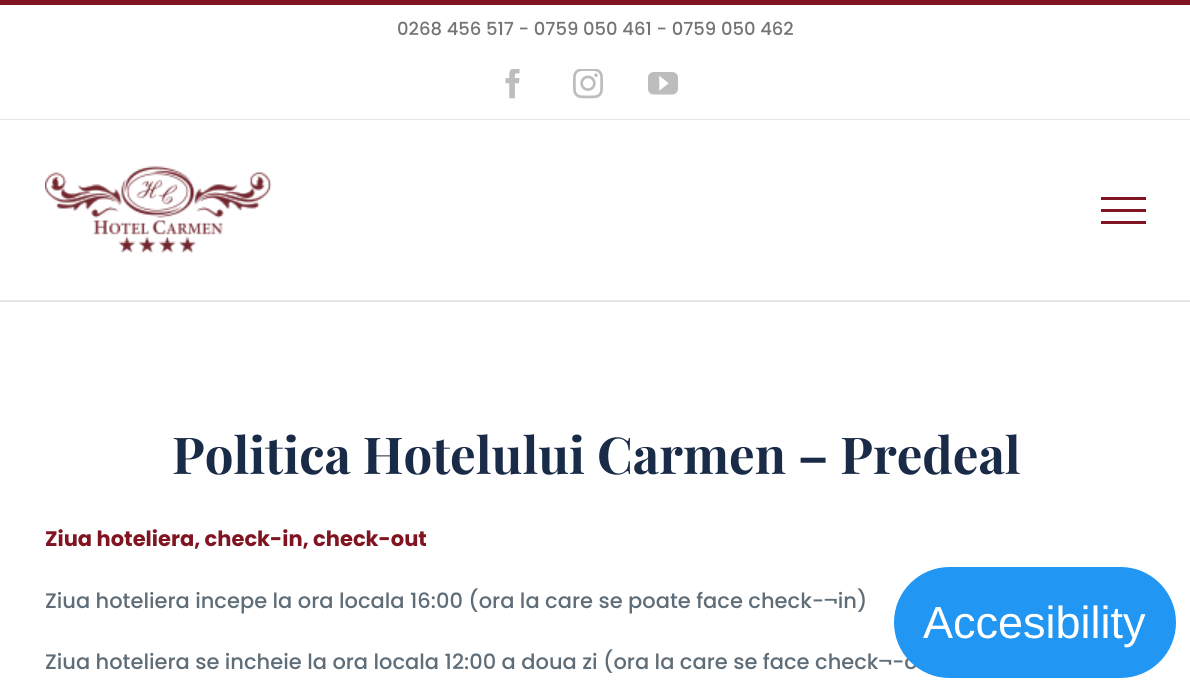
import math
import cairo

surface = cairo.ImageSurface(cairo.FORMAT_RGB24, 1190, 692)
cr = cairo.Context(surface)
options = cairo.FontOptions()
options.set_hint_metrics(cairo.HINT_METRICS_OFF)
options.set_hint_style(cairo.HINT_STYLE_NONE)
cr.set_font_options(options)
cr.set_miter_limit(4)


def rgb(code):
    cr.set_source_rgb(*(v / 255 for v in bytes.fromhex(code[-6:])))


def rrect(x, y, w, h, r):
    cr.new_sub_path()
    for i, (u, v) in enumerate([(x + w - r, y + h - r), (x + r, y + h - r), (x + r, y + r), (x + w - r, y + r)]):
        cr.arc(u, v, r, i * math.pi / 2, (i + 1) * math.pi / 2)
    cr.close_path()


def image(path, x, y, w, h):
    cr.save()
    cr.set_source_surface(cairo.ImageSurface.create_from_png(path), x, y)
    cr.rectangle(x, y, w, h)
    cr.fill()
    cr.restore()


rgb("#ffffff")
cr.paint()
rgb("#801521")
cr.rectangle(0, 0, 1190, 5)
cr.fill()
rgb("#e5e5e5")
cr.rectangle(0, 119, 1190, 1)
cr.fill()
image("img/1.png", 505, 69, 15, 30)
image("img/2.png", 573, 69, 30, 30)
image("img/3.png", 648, 72, 30, 23)
cr.rectangle(0, 300, 1190, 2)
cr.fill()
image("img/4.png", 45, 166, 227, 87)
for x, y, w, h, color in [
    (1101, 197, 45, 3, "#801521"),
    (1101, 209, 45, 3, "#801521"),
    (1101, 221, 45, 3, "#801521"),
]:
    rgb(color)
    cr.rectangle(x, y, w, h)
    cr.fill()
cr.select_font_face("Poppins Medium")
cr.set_font_size(18)
rgb("#747474")
cr.move_to(397, 35)
cr.show_text("0268 456 517 - 0759 050 461 - 0759 050 462")
cr.select_font_face("Playfair Display", cairo.FONT_SLANT_NORMAL, cairo.FONT_WEIGHT_BOLD)
cr.set_font_size(50.9)
rgb("#1a2b48")
cr.move_to(172, 474)
cr.show_text("Politica Hotelului Carmen – Predeal")
cr.select_font_face("Poppins", cairo.FONT_SLANT_NORMAL, cairo.FONT_WEIGHT_BOLD)
cr.set_font_size(21)
rgb("#801521")
cr.move_to(45, 546)
cr.show_text("Ziua hoteliera, check-in, check-out")
cr.select_font_face("Poppins Medium")
rgb("#5e6d77")
cr.move_to(45, 608)
cr.show_text("Ziua hoteliera incepe la ora locala 16:00 (ora la care se poate face check-¬in)")
cr.move_to(45, 669)
cr.show_text("Ziua hoteliera se incheie la ora locala 12:00 a doua zi (ora la care se face check¬-o")
rgb("#2196f3")
rrect(894, 567, 282, 111, 55.5)
cr.fill()
cr.select_font_face("Liberation Sans")
cr.set_font_size(45)
rgb("#ffffff")
cr.move_to(923, 638)
cr.show_text("Accesibility")
surface.write_to_png("page.png")
